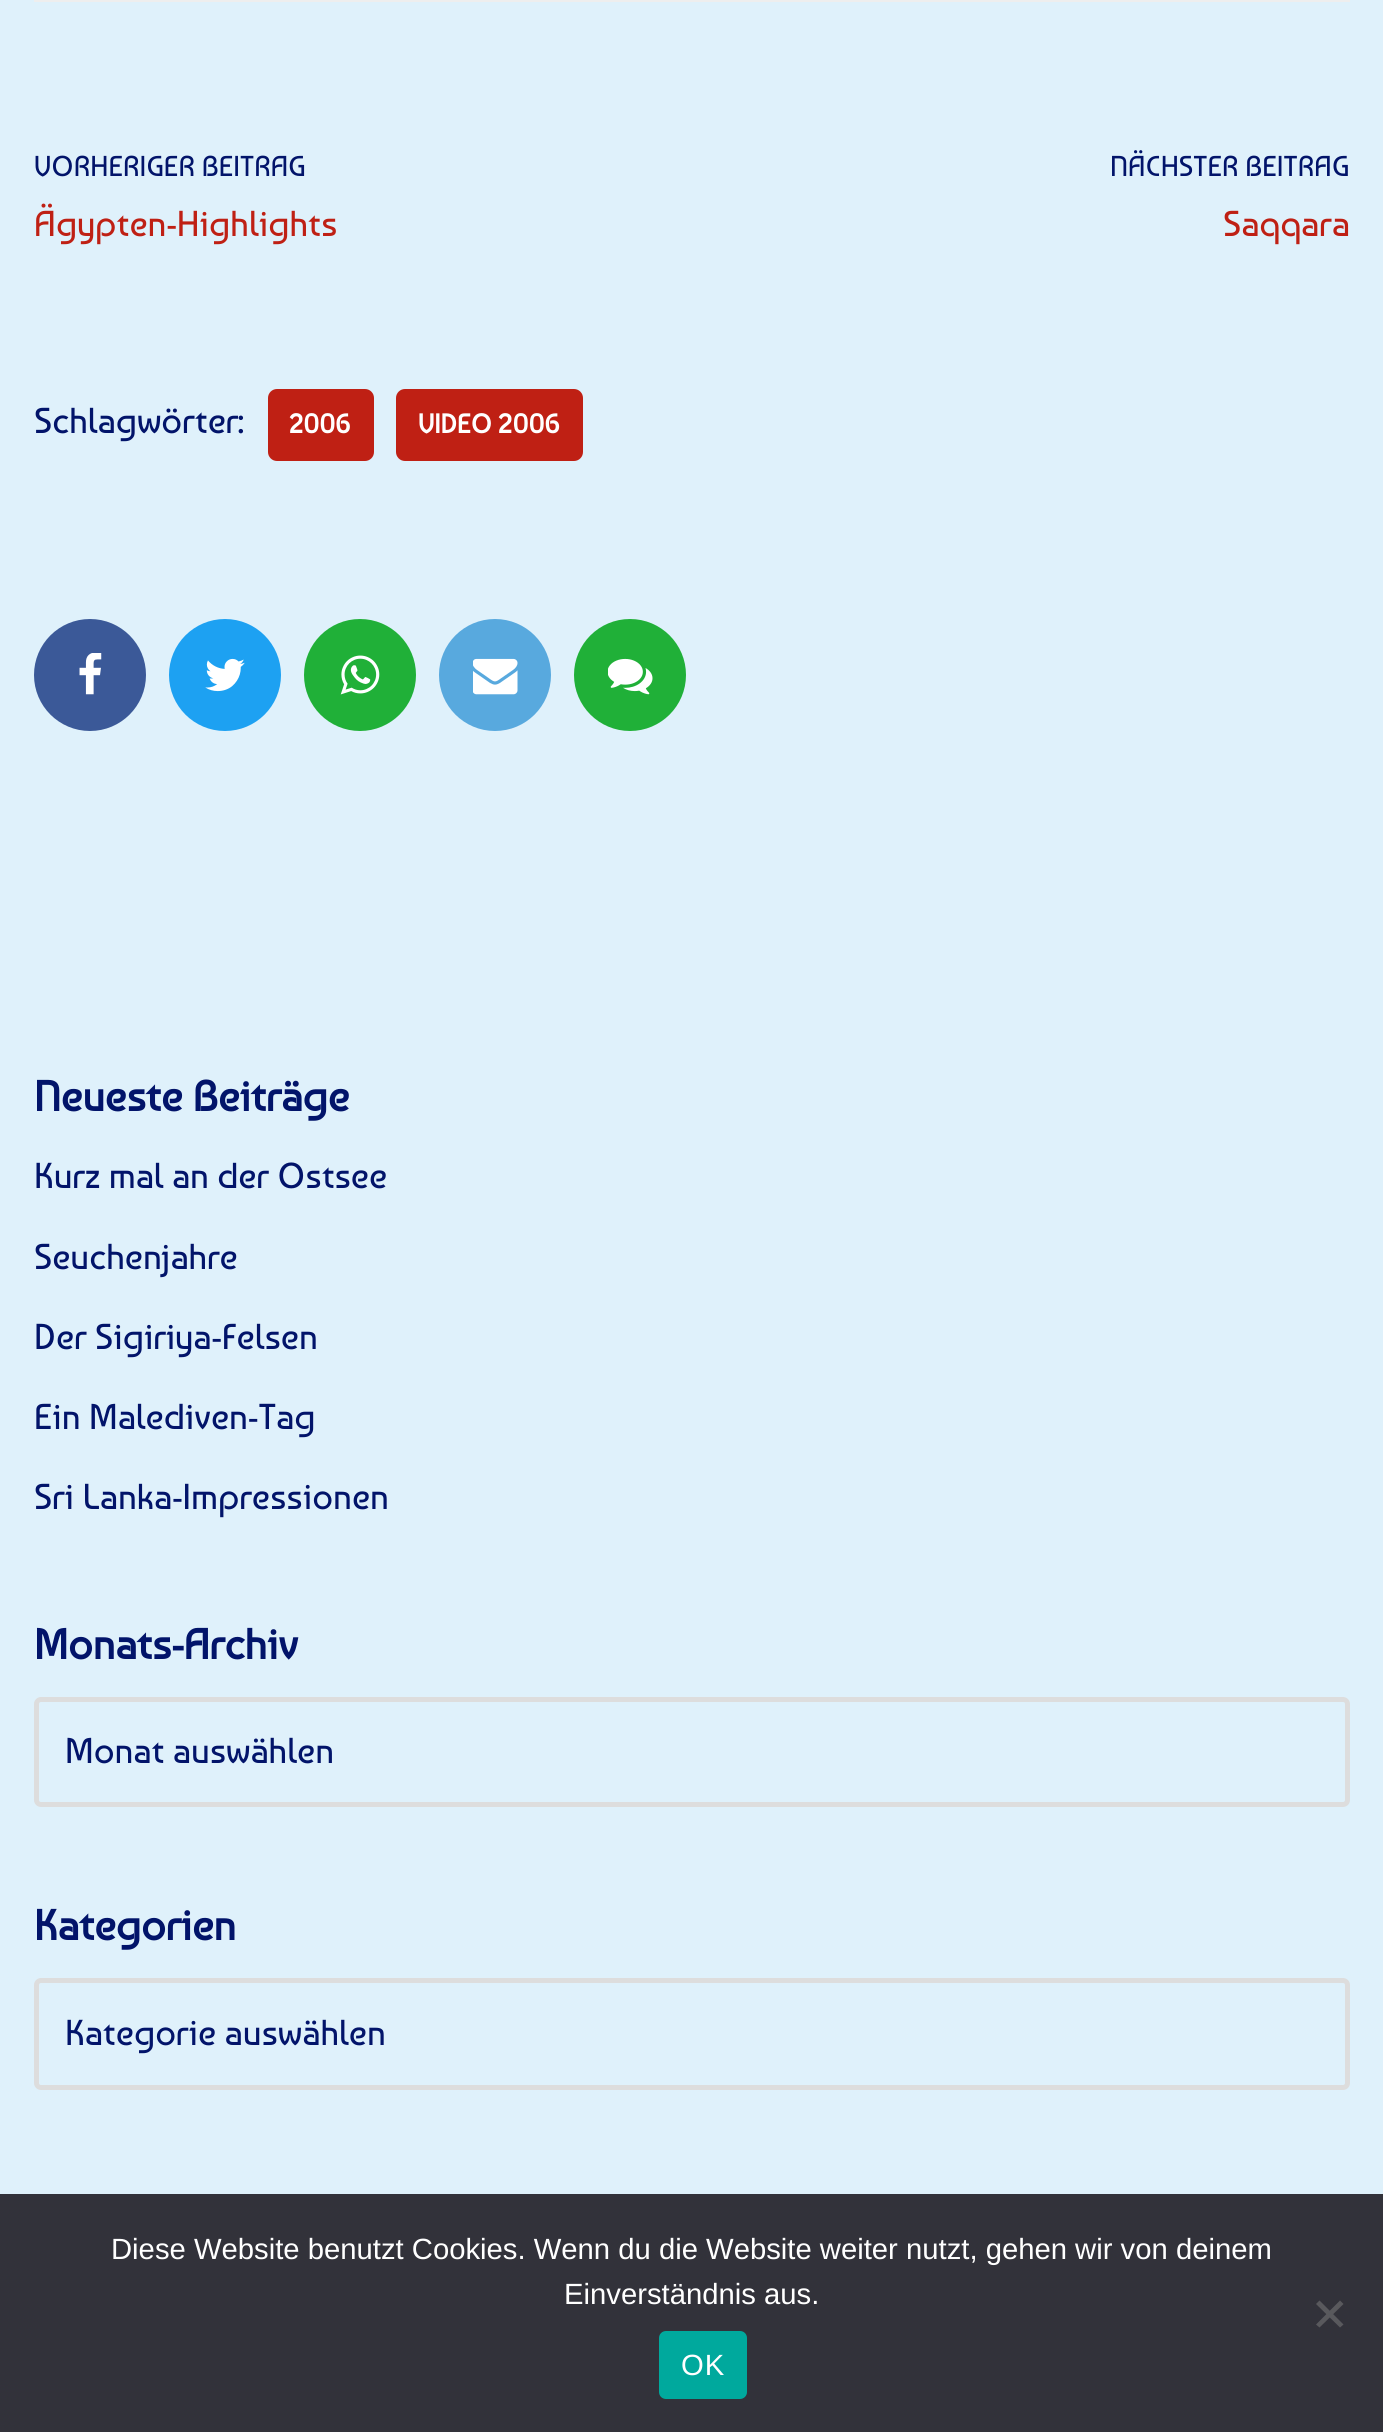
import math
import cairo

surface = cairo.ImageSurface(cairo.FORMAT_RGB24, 1383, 2432)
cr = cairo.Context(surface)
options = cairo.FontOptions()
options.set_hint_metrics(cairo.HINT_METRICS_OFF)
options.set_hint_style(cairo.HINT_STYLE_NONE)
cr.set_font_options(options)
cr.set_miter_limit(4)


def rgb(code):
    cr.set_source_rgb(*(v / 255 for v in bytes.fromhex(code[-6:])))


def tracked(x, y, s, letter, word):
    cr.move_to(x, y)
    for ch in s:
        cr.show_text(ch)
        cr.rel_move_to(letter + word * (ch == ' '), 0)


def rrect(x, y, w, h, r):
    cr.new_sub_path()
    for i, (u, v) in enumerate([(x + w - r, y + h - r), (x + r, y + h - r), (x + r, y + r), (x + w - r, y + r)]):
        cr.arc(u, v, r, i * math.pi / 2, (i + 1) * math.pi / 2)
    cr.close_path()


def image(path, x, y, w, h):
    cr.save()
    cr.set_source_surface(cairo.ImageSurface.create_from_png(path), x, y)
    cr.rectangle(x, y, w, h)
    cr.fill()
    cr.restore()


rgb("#dff1fb")
cr.paint()
cr.rectangle(35, -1, 1314, 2)
rgb("#eeeeee")
cr.stroke()
rgb("#bf2014")
rrect(268, 389, 106, 72, 9)
cr.fill()
rrect(396, 389, 187, 72, 9)
cr.fill()
rgb("#3b5998")
cr.arc(90, 675, 56, 0, 2 * math.pi)
cr.fill()
image("img/1.png", 79, 653, 23, 42)
rgb("#1da1f2")
cr.arc(225, 675, 56, 0, 2 * math.pi)
cr.fill()
image("img/2.png", 205, 658, 40, 34)
rgb("#20b038")
cr.arc(360, 675, 56, 0, 2 * math.pi)
cr.fill()
image("img/3.png", 340, 655, 40, 40)
rgb("#58a9de")
cr.arc(495, 675, 56, 0, 2 * math.pi)
cr.fill()
image("img/4.png", 473, 658, 45, 37)
rgb("#20b038")
cr.arc(630, 675, 56, 0, 2 * math.pi)
cr.fill()
image("img/5.png", 608, 658, 45, 37)
rrect(36.5, 1699.5, 1311, 105, 4.5)
rgb("#dddddd")
cr.set_line_width(5)
cr.stroke()
rrect(36.5, 1980.5, 1311, 107, 4.5)
cr.stroke()
rgb("#32323a")
cr.rectangle(0, 2194, 1383, 238)
cr.fill()
rgb("#59595d")
cr.new_path()
cr.move_to(1340, 2300.5)
cr.line_to(1343.5, 2304)
cr.line_to(1319.5, 2327.5)
cr.line_to(1316, 2324.5)
cr.close_path()
cr.fill()
cr.new_path()
cr.move_to(1316, 2304)
cr.line_to(1319.5, 2300.5)
cr.line_to(1343.5, 2324.5)
cr.line_to(1340, 2327.5)
cr.close_path()
cr.fill()
rgb("#00a99d")
rrect(659, 2331, 88, 68, 7)
cr.fill()
cr.select_font_face("Baumans")
cr.set_font_size(28.75)
rgb("#02146a")
cr.move_to(34, 176)
cr.show_text("VORHERIGER BEITRAG")
cr.set_font_size(36)
rgb("#bf2014")
cr.move_to(34, 236)
cr.show_text("Ägypten-Highlights")
cr.set_font_size(28.75)
rgb("#02146a")
cr.move_to(1110, 176)
cr.show_text("NÄCHSTER BEITRAG")
cr.set_font_size(36)
rgb("#bf2014")
cr.move_to(1223, 236)
cr.show_text("Saqqara")
rgb("#02146a")
cr.move_to(34, 433)
cr.show_text("Schlagwörter:")
cr.select_font_face("Baumans", cairo.FONT_SLANT_NORMAL, cairo.FONT_WEIGHT_BOLD)
cr.set_font_size(27)
rgb("#ffffff")
cr.move_to(289, 433)
cr.show_text("2006")
cr.move_to(418, 433)
cr.show_text("VIDEO 2006")
cr.set_font_size(42.75)
rgb("#02146a")
cr.move_to(34, 1111)
cr.show_text("Neueste Beiträge")
cr.select_font_face("Baumans")
cr.set_font_size(36)
for x, y, s in [
    (34, 1188, "Kurz mal an der Ostsee"),
    (34, 1269, "Seuchenjahre"),
    (34, 1349, "Der Sigiriya-Felsen"),
    (34, 1429, "Ein Malediven-Tag"),
    (34, 1509, "Sri Lanka-Impressionen"),
]:
    cr.move_to(x, y)
    cr.show_text(s)
cr.select_font_face("Baumans", cairo.FONT_SLANT_NORMAL, cairo.FONT_WEIGHT_BOLD)
cr.set_font_size(42.75)
cr.move_to(34, 1659)
cr.show_text("Monats-Archiv")
cr.select_font_face("Baumans")
cr.set_font_size(36)
cr.move_to(65, 1763)
cr.show_text("Monat auswählen")
cr.select_font_face("Baumans", cairo.FONT_SLANT_NORMAL, cairo.FONT_WEIGHT_BOLD)
cr.set_font_size(42.75)
cr.move_to(34, 1940)
cr.show_text("Kategorien")
cr.select_font_face("Baumans")
cr.set_font_size(36)
cr.move_to(65, 2045)
cr.show_text("Kategorie auswählen")
cr.select_font_face("Liberation Sans")
cr.set_font_size(29.25)
rgb("#ffffff")
cr.move_to(111, 2259)
cr.show_text("Diese Website benutzt Cookies. Wenn du die Website weiter nutzt, gehen wir von deinem")
cr.move_to(564, 2304)
cr.show_text("Einverständnis aus.")
tracked(681, 2375, "OK", 1, 0)
surface.write_to_png("page.png")
